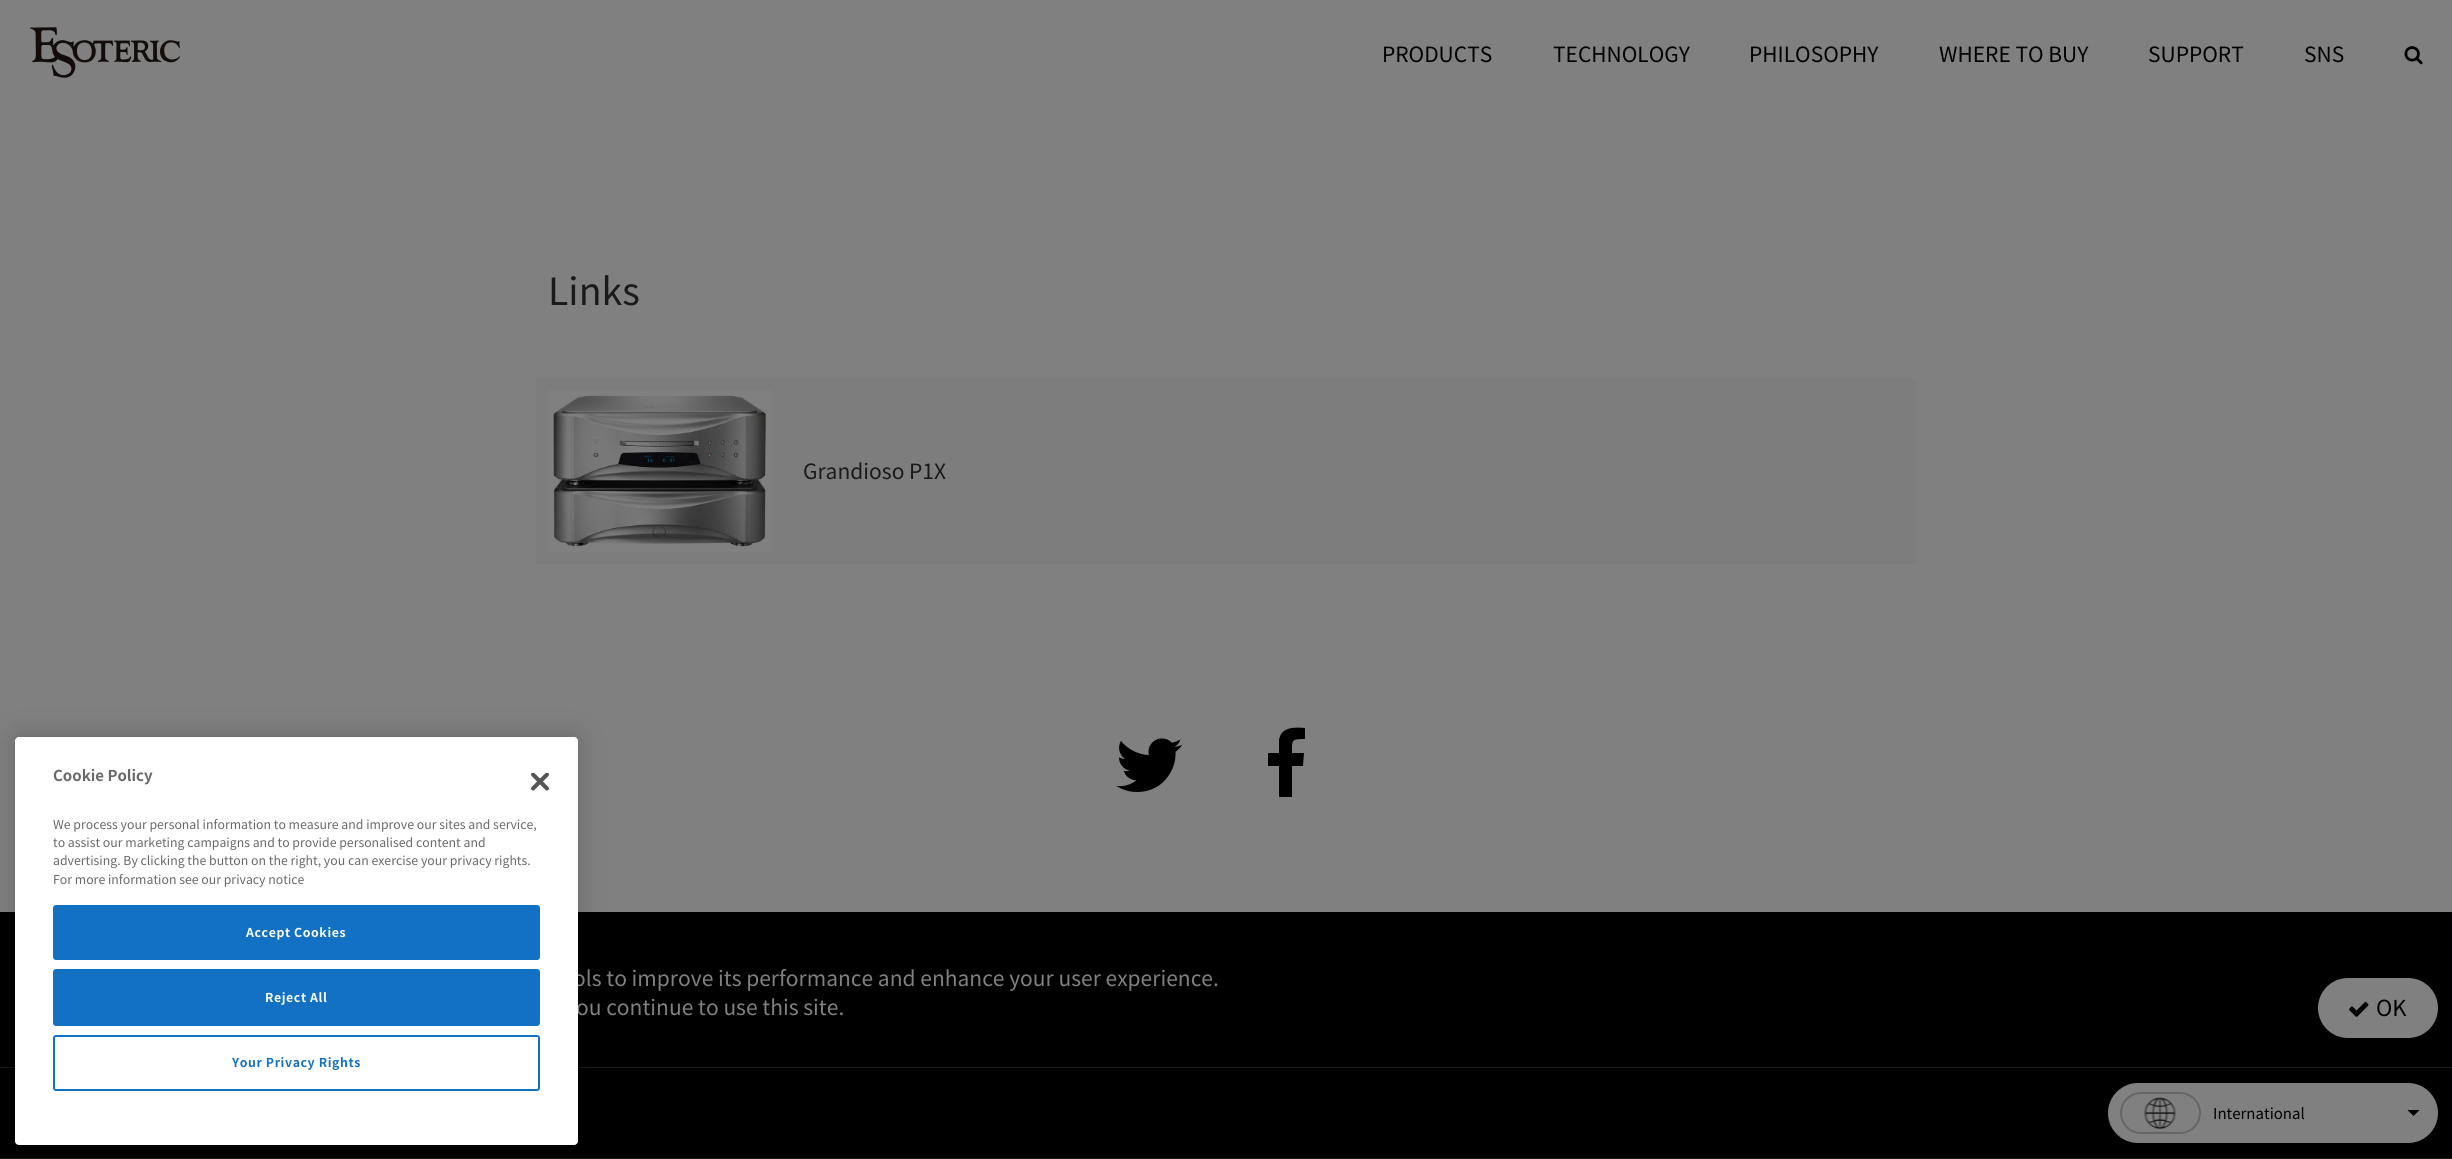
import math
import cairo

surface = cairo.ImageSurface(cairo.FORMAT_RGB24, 2452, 1159)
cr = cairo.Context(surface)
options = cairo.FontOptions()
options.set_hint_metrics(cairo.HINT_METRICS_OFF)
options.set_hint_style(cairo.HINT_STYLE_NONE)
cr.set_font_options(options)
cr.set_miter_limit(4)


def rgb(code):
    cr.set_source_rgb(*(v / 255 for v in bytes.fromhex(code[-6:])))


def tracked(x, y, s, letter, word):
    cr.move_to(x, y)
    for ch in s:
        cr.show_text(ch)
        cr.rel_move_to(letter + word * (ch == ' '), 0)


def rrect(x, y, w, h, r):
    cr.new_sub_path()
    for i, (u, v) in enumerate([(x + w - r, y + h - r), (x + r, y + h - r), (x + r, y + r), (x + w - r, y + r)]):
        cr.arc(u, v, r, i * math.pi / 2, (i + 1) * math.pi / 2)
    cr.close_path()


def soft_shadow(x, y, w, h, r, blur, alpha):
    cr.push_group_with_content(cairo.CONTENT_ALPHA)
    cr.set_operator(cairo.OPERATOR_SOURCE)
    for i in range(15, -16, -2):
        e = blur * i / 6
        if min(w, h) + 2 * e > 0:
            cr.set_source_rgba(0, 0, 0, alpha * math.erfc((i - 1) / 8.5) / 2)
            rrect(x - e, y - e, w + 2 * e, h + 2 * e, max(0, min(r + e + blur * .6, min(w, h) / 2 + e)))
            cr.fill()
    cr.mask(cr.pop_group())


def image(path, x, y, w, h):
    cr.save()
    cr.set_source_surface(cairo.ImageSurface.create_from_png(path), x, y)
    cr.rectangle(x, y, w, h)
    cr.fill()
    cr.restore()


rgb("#808080")
cr.paint()
image("img/1.png", 30, 27, 150, 51)
image("img/2.png", 2404, 46, 19, 19)
rgb("#7d7d7d")
cr.rectangle(536, 378, 1380, 186)
cr.fill()
image("img/3.png", 548, 390, 224, 162)
image("img/4.png", 1116, 738, 67, 54)
rgb("#000000")
cr.new_path()
cr.move_to(1305, 728)
cr.line_to(1305, 739)
cr.curve_to(1291, 739, 1292, 740, 1292, 753)
cr.line_to(1304, 753)
cr.line_to(1303, 766)
cr.line_to(1292, 766)
cr.line_to(1292, 797)
cr.line_to(1279, 797)
cr.line_to(1279, 766)
cr.line_to(1268, 766)
cr.line_to(1268, 753)
cr.line_to(1279, 753)
cr.line_to(1279, 740)
cr.curve_to(1281, 727, 1294, 727, 1305, 728)
cr.close_path()
cr.fill()
for x, y, w, h, color in [
    (0, 912, 2452, 155, "#000000"),
    (0, 1067, 2452, 1, "#1a1a1a"),
    (0, 1068, 2452, 90, "#000000"),
    (0, 1158, 2452, 1, "#1a1a1a"),
]:
    rgb(color)
    cr.rectangle(x, y, w, h)
    cr.fill()
rgb("#000000")
soft_shadow(15, 737, 563, 408, 4, 13.5, 0.2)
rgb("#808080")
rrect(2318, 978, 120, 60, 30)
cr.fill()
image("img/6.png", 2349, 1001, 20, 16)
rrect(2108, 1083, 330, 60, 30)
cr.fill()
image("img/7.png", 2144, 1097, 32, 32)
rrect(2121, 1093, 79, 40, 20)
rgb("#666666")
cr.stroke()
rgb("#000000")
cr.new_path()
cr.move_to(2407.5, 1110)
cr.line_to(2419.5, 1110)
cr.line_to(2413.5, 1116)
cr.close_path()
cr.fill()
cr.select_font_face("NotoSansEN")
cr.set_font_size(21)
for x, y, s in [
    (1382, 62, "PRODUCTS"),
    (1553, 62, "TECHNOLOGY"),
    (1749, 62, "PHILOSOPHY"),
    (1939, 62, "WHERE TO BUY"),
    (2148, 62, "SUPPORT"),
    (2304, 62, "SNS"),
]:
    cr.move_to(x, y)
    cr.show_text(s)
cr.set_font_size(37.5)
rgb("#1a1a1a")
cr.move_to(548, 305)
cr.show_text("Links")
cr.set_font_size(21)
cr.move_to(803, 479)
cr.show_text("Grandioso P1X")
rgb("#808080")
cr.move_to(573, 986)
cr.show_text("ols to improve its performance and enhance your user experience.")
cr.move_to(576, 1015)
cr.show_text("ou continue to use this site.")
rgb("#ffffff")
rrect(15, 737, 563, 408, 4)
cr.fill()
image("img/5.png", 531, 773, 18, 18)
rrect(54, 1036, 485, 54, 2)
rgb("#1371c3")
cr.stroke()
cr.select_font_face("NotoSansEN", cairo.FONT_SLANT_NORMAL, cairo.FONT_WEIGHT_BOLD)
cr.set_font_size(12.3)
tracked(232, 1067, "Your Privacy Rights", 0.6, 0)
rrect(54, 970, 485, 55, 2)
cr.fill_preserve()
cr.stroke()
rgb("#ffffff")
tracked(265, 1002, "Reject All", 0.6, 0)
rgb("#1371c3")
rrect(54, 906, 485, 53, 2)
cr.fill_preserve()
cr.stroke()
rgb("#ffffff")
tracked(246, 937, "Accept Cookies", 0.6, 0)
cr.select_font_face("NotoSansEN")
rgb("#696969")
for x, y, s in [
    (53, 884, "For more information see our privacy notice"),
    (53, 865, "advertising. By clicking the button on the right, you can exercise your privacy rights."),
    (53, 847, "to assist our marketing campaigns and to provide personalised content and"),
    (53, 829, "We process your personal information to measure and improve our sites and service,"),
]:
    cr.move_to(x, y)
    cr.show_text(s)
cr.select_font_face("NotoSansEN", cairo.FONT_SLANT_NORMAL, cairo.FONT_WEIGHT_BOLD)
cr.set_font_size(15)
cr.move_to(53, 781)
cr.show_text("Cookie Policy")
cr.select_font_face("NotoSansEN")
cr.set_font_size(22)
rgb("#000000")
cr.move_to(2376, 1016)
cr.show_text("OK")
cr.set_font_size(15)
cr.move_to(2213, 1119)
cr.show_text("International")
surface.write_to_png("page.png")
